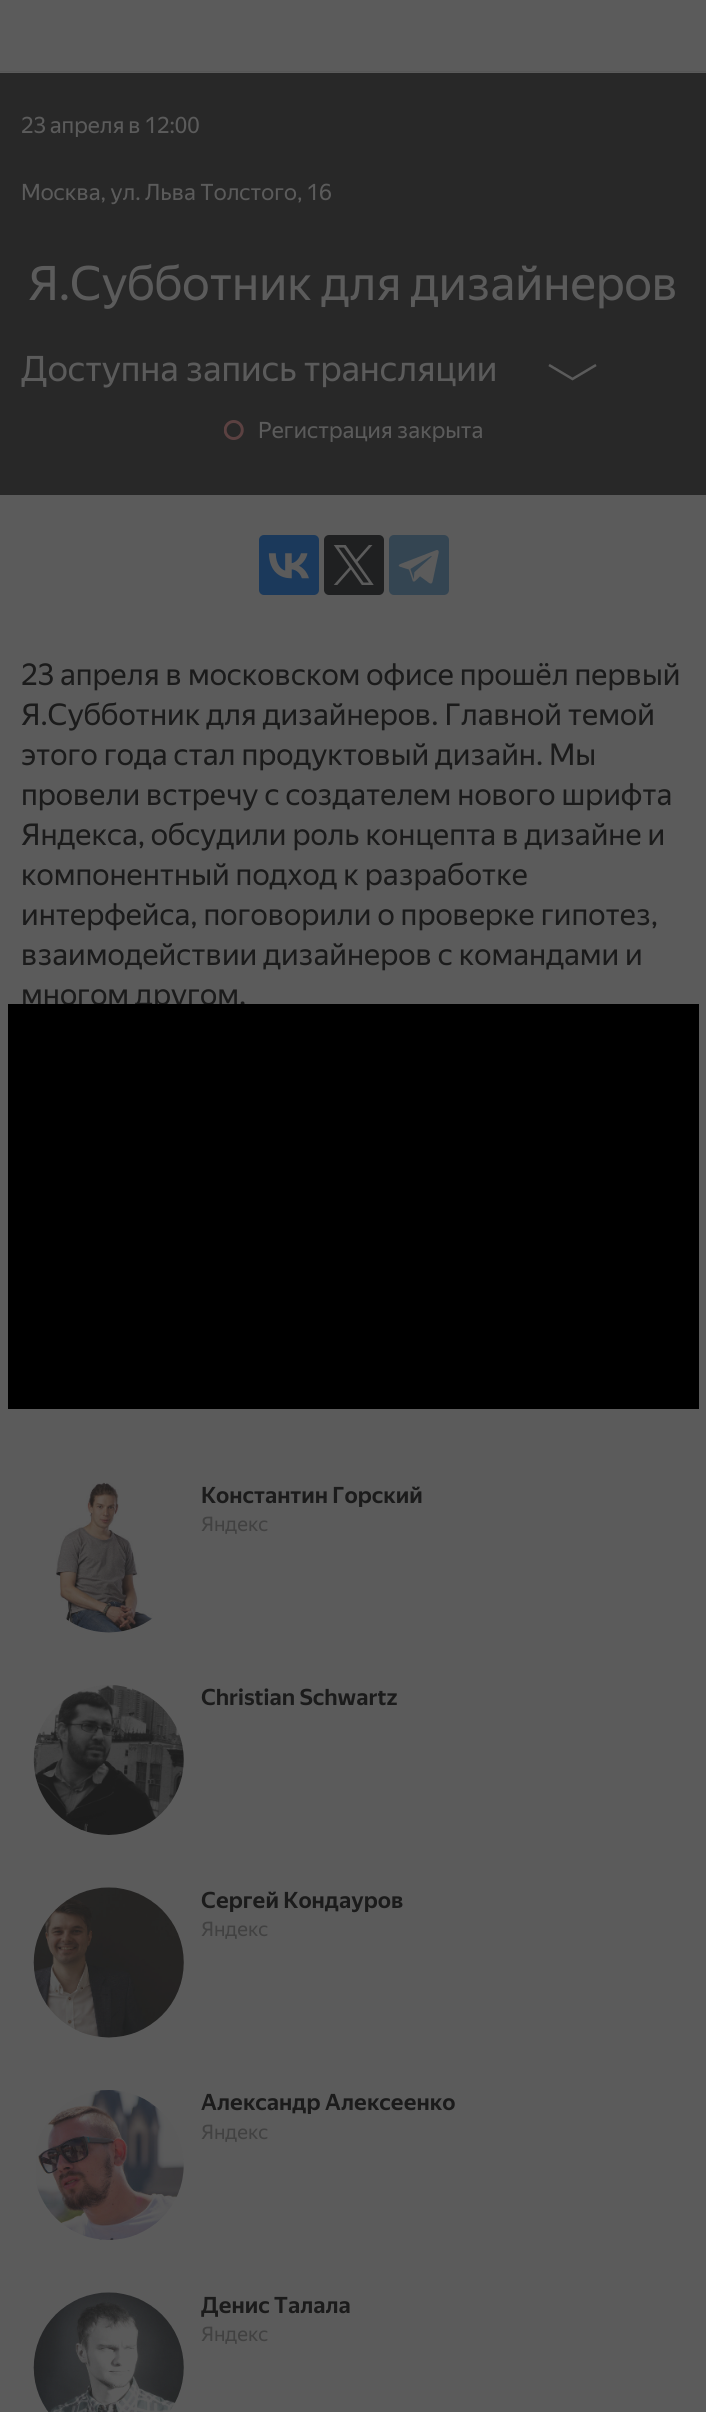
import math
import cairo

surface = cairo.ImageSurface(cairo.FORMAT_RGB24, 706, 2412)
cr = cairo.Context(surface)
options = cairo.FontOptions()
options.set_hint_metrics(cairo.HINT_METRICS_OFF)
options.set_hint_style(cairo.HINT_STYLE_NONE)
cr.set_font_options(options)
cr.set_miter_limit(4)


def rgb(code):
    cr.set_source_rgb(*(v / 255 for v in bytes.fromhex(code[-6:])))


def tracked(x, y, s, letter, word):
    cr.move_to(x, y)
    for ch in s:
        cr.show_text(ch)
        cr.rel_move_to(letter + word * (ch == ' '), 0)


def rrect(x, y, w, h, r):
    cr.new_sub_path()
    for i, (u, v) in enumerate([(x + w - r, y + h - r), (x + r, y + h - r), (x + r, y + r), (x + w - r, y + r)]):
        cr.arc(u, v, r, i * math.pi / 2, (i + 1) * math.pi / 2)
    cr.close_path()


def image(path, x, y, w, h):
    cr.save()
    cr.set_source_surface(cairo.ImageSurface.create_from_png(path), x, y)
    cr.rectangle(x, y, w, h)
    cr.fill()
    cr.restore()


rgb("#5b5b5b")
cr.paint()
rgb("#565656")
cr.rectangle(0, 71, 706, 1)
cr.fill()
rgb("#282828")
cr.rectangle(0, 73, 706, 422)
cr.fill()
cr.new_path()
cr.move_to(549, 365)
cr.line_to(572.5, 379)
cr.line_to(596, 365)
rgb("#5b5b5b")
cr.set_line_width(2.5)
cr.stroke()
image("img/1.png", 224, 420, 20, 20)
rgb("#1b395b")
rrect(259, 535, 60, 60, 5)
cr.fill()
image("img/2.png", 268, 553, 41, 26)
rgb("#1f2021")
rrect(324, 535, 60, 60, 5)
cr.fill()
image("img/3.png", 333, 545, 41, 40)
rgb("#344552")
rrect(389, 535, 60, 60, 5)
cr.fill()
image("img/4.png", 398, 550, 41, 34)
image("img/5.png", 56, 1482, 97, 151)
image("img/6.png", 33, 1685, 151, 150)
image("img/7.png", 33, 1887, 151, 151)
image("img/8.png", 36, 2090, 148, 150)
image("img/9.png", 33, 2292, 151, 120)
cr.select_font_face("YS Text")
cr.set_font_size(22.5)
rgb("#5b5b5b")
tracked(21, 133, "23 апреля в 12:00", 0, -0.5)
cr.move_to(21, 200)
cr.show_text("Москва, ул. Льва Толстого, 16")
cr.set_font_size(47.5)
cr.move_to(28, 300)
cr.show_text("Я.Субботник для дизайнеров")
cr.set_font_size(35)
cr.move_to(21, 381)
cr.show_text("Доступна запись трансляции")
cr.set_font_size(22.5)
cr.move_to(258, 438)
cr.show_text("Регистрация закрыта")
cr.set_font_size(30)
rgb("#1b1b1b")
for x, y, s in [
    (21, 685, "23 апреля в московском офисе прошёл первый"),
    (21, 725, "Я.Субботник для дизайнеров. Главной темой"),
    (21, 765, "этого года стал продуктовый дизайн. Мы"),
    (21, 805, "провели встречу с создателем нового шрифта"),
    (21, 845, "Яндекса, обсудили роль концепта в дизайне и"),
    (21, 885, "компонентный подход к разработке"),
    (21, 925, "интерфейса, поговорили о проверке гипотез,"),
    (21, 965, "взаимодействии дизайнеров с командами и"),
    (21, 1005, "многом другом."),
]:
    cr.move_to(x, y)
    cr.show_text(s)
cr.select_font_face("YS Text", cairo.FONT_SLANT_NORMAL, cairo.FONT_WEIGHT_BOLD)
cr.set_font_size(22.5)
cr.move_to(201, 1503)
cr.show_text("Константин Горский")
cr.select_font_face("YS Text")
cr.set_font_size(20)
rgb("#414141")
cr.move_to(201, 1531)
cr.show_text("Яндекс")
cr.select_font_face("YS Text", cairo.FONT_SLANT_NORMAL, cairo.FONT_WEIGHT_BOLD)
cr.set_font_size(22.5)
rgb("#1b1b1b")
cr.move_to(201, 1705)
cr.show_text("Christian Schwartz")
cr.move_to(201, 1908)
cr.show_text("Сергей Кондауров")
cr.select_font_face("YS Text")
cr.set_font_size(20)
rgb("#414141")
cr.move_to(201, 1936)
cr.show_text("Яндекс")
cr.select_font_face("YS Text", cairo.FONT_SLANT_NORMAL, cairo.FONT_WEIGHT_BOLD)
cr.set_font_size(22.5)
rgb("#1b1b1b")
cr.move_to(201, 2110)
cr.show_text("Александр Алексеенко")
cr.select_font_face("YS Text")
cr.set_font_size(20)
rgb("#414141")
cr.move_to(201, 2139)
cr.show_text("Яндекс")
cr.select_font_face("YS Text", cairo.FONT_SLANT_NORMAL, cairo.FONT_WEIGHT_BOLD)
cr.set_font_size(22.5)
rgb("#1b1b1b")
cr.move_to(201, 2313)
cr.show_text("Денис Талала")
cr.select_font_face("YS Text")
cr.set_font_size(20)
rgb("#414141")
cr.move_to(201, 2341)
cr.show_text("Яндекс")
rgb("#000000")
cr.rectangle(8, 1004, 691, 405)
cr.fill()
surface.write_to_png("page.png")
